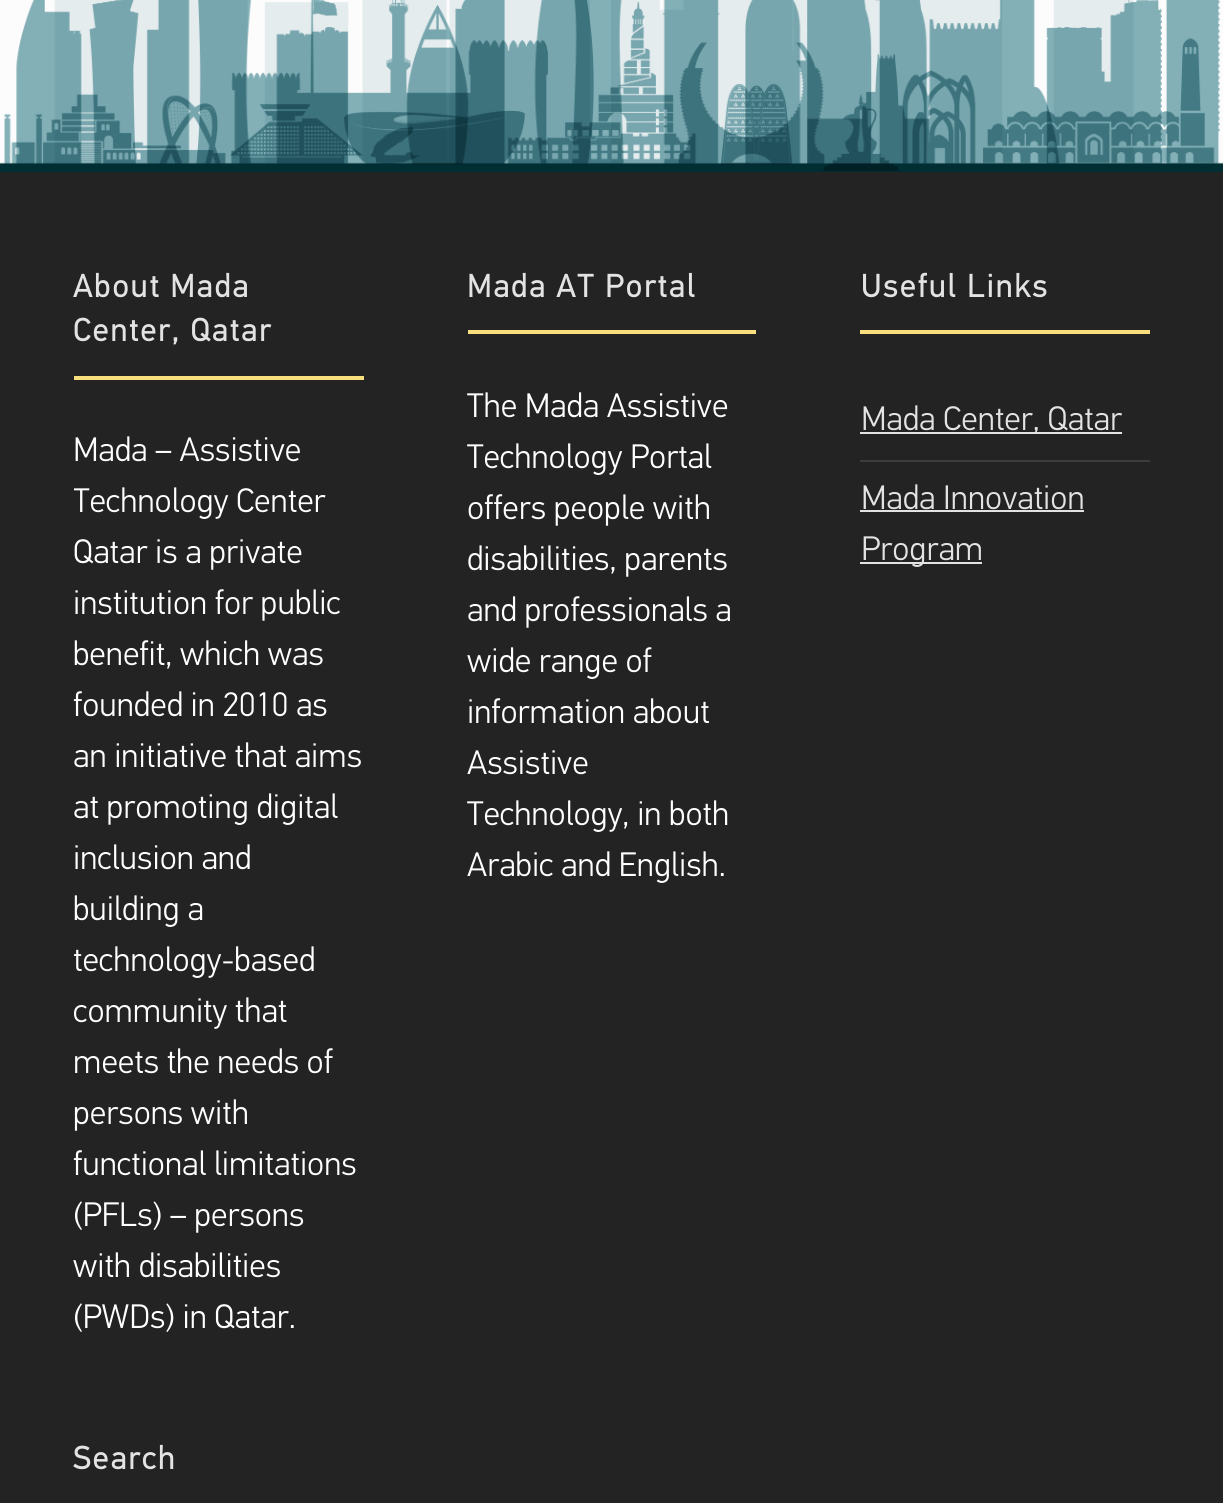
import math
import cairo

surface = cairo.ImageSurface(cairo.FORMAT_RGB24, 1223, 1503)
cr = cairo.Context(surface)
options = cairo.FontOptions()
options.set_hint_metrics(cairo.HINT_METRICS_OFF)
options.set_hint_style(cairo.HINT_STYLE_NONE)
cr.set_font_options(options)
cr.set_miter_limit(4)


def rgb(code):
    cr.set_source_rgb(*(v / 255 for v in bytes.fromhex(code[-6:])))


def tracked(x, y, s, letter, word):
    cr.move_to(x, y)
    for ch in s:
        cr.show_text(ch)
        cr.rel_move_to(letter + word * (ch == ' '), 0)


def image(path, x, y, w, h):
    cr.save()
    cr.set_source_surface(cairo.ImageSurface.create_from_png(path), x, y)
    cr.rectangle(x, y, w, h)
    cr.fill()
    cr.restore()


rgb("#fdfcfc")
cr.paint()
image("img/1.png", 0, 0, 1223, 172)
for x, y, w, h, color in [
    (0, 172, 1223, 1331, "#242323"),
    (74, 376, 290, 4, "#f8de7c"),
    (468, 330, 288, 4, "#f8de7c"),
    (860, 330, 290, 4, "#f8de7c"),
    (860, 432, 262, 2, "#e4e3e3"),
    (860, 460, 290, 2, "#3e3d3d"),
    (860, 510, 224, 2, "#e4e3e3"),
    (860, 562, 122, 2, "#e4e3e3"),
]:
    rgb(color)
    cr.rectangle(x, y, w, h)
    cr.fill()
cr.select_font_face("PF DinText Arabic", cairo.FONT_SLANT_NORMAL, cairo.FONT_WEIGHT_BOLD)
cr.set_font_size(32)
tracked(73, 297, "About Mada", 2.4, 0)
tracked(73, 341, "Center, Qatar", 2.4, 0)
cr.select_font_face("PF DinText Arabic Light")
cr.set_font_size(34)
rgb("#ffffff")
cr.move_to(73, 461)
cr.show_text("Mada – Assistive")
cr.save()
cr.rectangle(74, 172, 1076, 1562)
cr.clip()
cr.move_to(73, 512)
cr.show_text("Technology Center")
cr.restore()
for x, y, s in [
    (73, 563, "Qatar is a private"),
    (73, 614, "institution for public"),
    (73, 665, "benefit, which was"),
    (73, 716, "founded in 2010 as"),
    (73, 767, "an initiative that aims"),
    (73, 818, "at promoting digital"),
    (73, 869, "inclusion and"),
    (73, 920, "building a"),
    (73, 971, "technology-based"),
    (73, 1022, "community that"),
    (73, 1073, "meets the needs of"),
    (73, 1124, "persons with"),
    (73, 1175, "functional limitations"),
    (73, 1226, "(PFLs) – persons"),
    (73, 1277, "with disabilities"),
    (73, 1328, "(PWDs) in Qatar."),
]:
    cr.move_to(x, y)
    cr.show_text(s)
cr.select_font_face("PF DinText Arabic", cairo.FONT_SLANT_NORMAL, cairo.FONT_WEIGHT_BOLD)
cr.set_font_size(32)
rgb("#e4e3e3")
tracked(467, 297, "Mada AT Portal", 2.4, 0)
cr.select_font_face("PF DinText Arabic Light")
cr.set_font_size(34)
rgb("#ffffff")
for x, y, s in [
    (467, 417, "The Mada Assistive"),
    (467, 468, "Technology Portal"),
    (467, 519, "offers people with"),
    (467, 570, "disabilities, parents"),
    (467, 621, "and professionals a"),
    (467, 672, "wide range of"),
    (467, 723, "information about"),
    (467, 774, "Assistive"),
    (467, 825, "Technology, in both"),
    (467, 876, "Arabic and English."),
]:
    cr.move_to(x, y)
    cr.show_text(s)
cr.select_font_face("PF DinText Arabic", cairo.FONT_SLANT_NORMAL, cairo.FONT_WEIGHT_BOLD)
cr.set_font_size(32)
rgb("#e4e3e3")
tracked(861, 297, "Useful Links", 2.4, 0)
cr.select_font_face("PF DinText Arabic Light")
cr.set_font_size(34)
for x, y, s in [
    (861, 430, "Mada Center, Qatar"),
    (861, 509, "Mada Innovation"),
    (861, 560, "Program"),
]:
    cr.move_to(x, y)
    cr.show_text(s)
cr.select_font_face("PF DinText Arabic", cairo.FONT_SLANT_NORMAL, cairo.FONT_WEIGHT_BOLD)
cr.set_font_size(32)
tracked(73, 1469, "Search", 2.4, 0)
surface.write_to_png("page.png")
